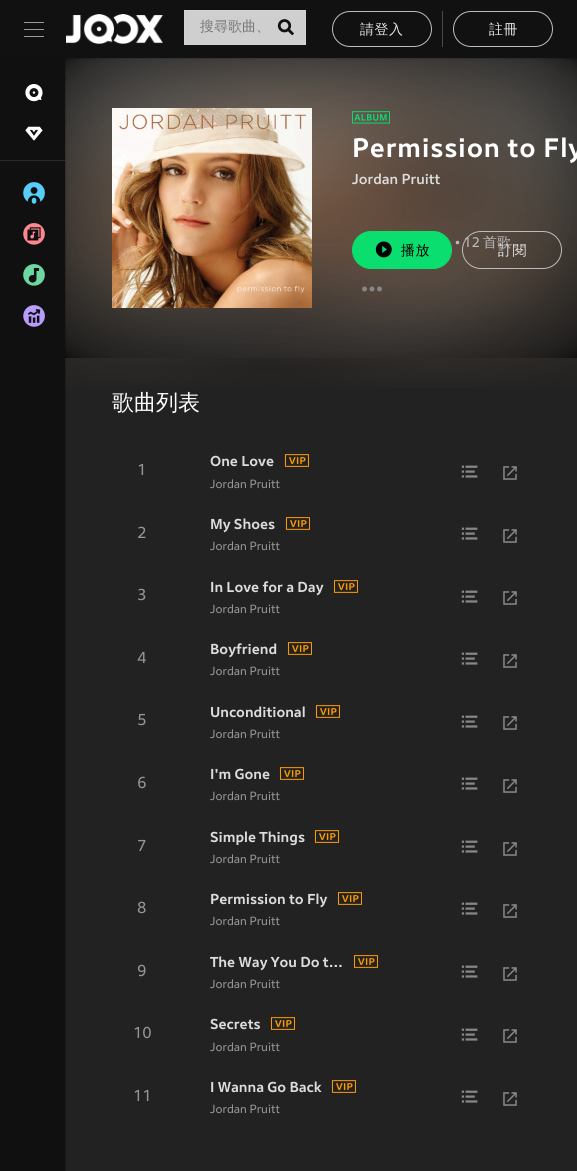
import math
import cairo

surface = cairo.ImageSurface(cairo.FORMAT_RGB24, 577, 1171)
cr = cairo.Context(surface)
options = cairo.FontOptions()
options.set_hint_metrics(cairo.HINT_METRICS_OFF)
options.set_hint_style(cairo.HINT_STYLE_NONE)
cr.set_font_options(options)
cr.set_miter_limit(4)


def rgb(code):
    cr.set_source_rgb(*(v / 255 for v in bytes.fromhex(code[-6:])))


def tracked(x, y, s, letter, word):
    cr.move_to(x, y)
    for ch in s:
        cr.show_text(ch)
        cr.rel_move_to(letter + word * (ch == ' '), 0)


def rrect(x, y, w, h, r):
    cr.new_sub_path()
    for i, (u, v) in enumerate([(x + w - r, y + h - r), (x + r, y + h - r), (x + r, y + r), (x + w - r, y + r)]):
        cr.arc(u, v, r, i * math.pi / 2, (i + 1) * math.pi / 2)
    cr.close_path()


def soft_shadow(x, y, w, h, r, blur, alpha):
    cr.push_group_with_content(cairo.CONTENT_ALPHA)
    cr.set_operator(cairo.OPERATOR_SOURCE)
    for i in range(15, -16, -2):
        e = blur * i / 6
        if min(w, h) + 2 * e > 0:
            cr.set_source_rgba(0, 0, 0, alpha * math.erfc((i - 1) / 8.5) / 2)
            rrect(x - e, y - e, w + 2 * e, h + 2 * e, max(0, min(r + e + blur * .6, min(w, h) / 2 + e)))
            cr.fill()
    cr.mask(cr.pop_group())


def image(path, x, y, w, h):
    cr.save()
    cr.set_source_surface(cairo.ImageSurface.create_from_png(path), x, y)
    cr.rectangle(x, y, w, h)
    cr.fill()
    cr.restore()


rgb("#222222")
cr.paint()
image("img/9.png", 65, 58, 512, 330)
rgb("#000000")
soft_shadow(0, 1, 577, 58, 0, 0.5, 0.2)
for x, y, w, h, color in [
    (0, 0, 577, 58, "#111111"),
    (24, 22, 20, 1, "#9b9b9b"),
    (24, 29, 20, 1, "#9b9b9b"),
    (24, 36, 20, 1, "#9b9b9b"),
]:
    rgb(color)
    cr.rectangle(x, y, w, h)
    cr.fill()
image("img/1.png", 66, 14, 97, 30)
rgb("#cfcfcf")
cr.rectangle(184.5, 10.5, 121, 34)
cr.fill_preserve()
rgb("#d4d4d4")
cr.set_line_width(1)
cr.stroke()
image("img/2.png", 277, 19, 17, 17)
rrect(332.5, 11.5, 99, 35, 17.5)
rgb("#bcbcbc")
cr.stroke()
rgb("#4a4a4a")
cr.rectangle(442, 11, 1, 36)
cr.fill()
rrect(453.5, 11.5, 99, 35, 17.5)
rgb("#bcbcbc")
cr.stroke()
gradient = cairo.RadialGradient(0, 0, 0, 0, 0, 1)
gradient.set_matrix(cairo.Matrix(1 / 362, 0, 0, 1 / 212, -1 * 321 / 362, -1 * 208 / 212))
gradient.add_color_stop_rgba(0, 0.6, 0.6, 0.6, 0.11)
gradient.add_color_stop_rgba(0.01, 0.6, 0.6, 0.6, 0.11)
gradient.add_color_stop_rgba(0.76, 0.169, 0.169, 0.169, 0.48)
gradient.add_color_stop_rgba(0.91, 0.11, 0.11, 0.11, 0.56)
gradient.add_color_stop_rgba(0.96, 0.067, 0.067, 0.067, 0.58)
gradient.add_color_stop_rgba(1, 0, 0, 0, 0.6)
cr.set_source(gradient)
cr.rectangle(65, 58, 512, 300)
cr.fill()
rgb("#000000")
soft_shadow(1, 58, 65, 1113, 0, 0.5, 0.2)
rgb("#101010")
cr.rectangle(0, 58, 65, 1113)
cr.fill()
rgb("#2b2b2b")
cr.rectangle(0, 160, 65, 1)
cr.fill()
image("img/3.png", 25, 84, 18, 18)
image("img/4.png", 25, 126, 18, 15)
image("img/5.png", 23, 182, 22, 22)
image("img/6.png", 23, 223, 22, 22)
image("img/7.png", 23, 264, 22, 22)
image("img/8.png", 23, 305, 22, 22)
image("img/10.png", 112, 108, 200, 200)
image("img/11.png", 352, 111, 38, 13)
rgb("#09de6e")
rrect(352.5, 231.5, 99, 37, 18.5)
cr.fill_preserve()
cr.stroke()
image("img/12.png", 375, 241, 17, 17)
rrect(462.5, 231.5, 99, 37, 18.5)
rgb("#bcbcbc")
cr.stroke()
image("img/13.png", 362, 286, 20, 6)
image("img/14.png", 284, 454, 25, 13)
image("img/15.png", 461, 465, 17, 13)
image("img/16.png", 503, 466, 14, 14)
image("img/14.png", 285, 517, 25, 13)
image("img/15.png", 461, 527, 17, 13)
image("img/16.png", 503, 529, 14, 14)
image("img/14.png", 333, 580, 25, 13)
image("img/15.png", 461, 590, 17, 13)
image("img/16.png", 503, 591, 14, 14)
image("img/14.png", 287, 642, 25, 13)
image("img/15.png", 461, 652, 17, 13)
image("img/16.png", 503, 654, 14, 14)
image("img/14.png", 315, 705, 25, 13)
image("img/15.png", 461, 715, 17, 13)
image("img/16.png", 503, 716, 14, 14)
image("img/14.png", 279, 767, 25, 13)
image("img/15.png", 461, 777, 17, 13)
image("img/16.png", 503, 779, 14, 14)
image("img/14.png", 314, 830, 25, 13)
image("img/15.png", 461, 840, 17, 13)
image("img/16.png", 503, 842, 14, 14)
image("img/14.png", 337, 892, 25, 13)
image("img/15.png", 461, 902, 17, 13)
image("img/16.png", 503, 904, 14, 14)
image("img/14.png", 353, 955, 25, 13)
image("img/15.png", 461, 965, 17, 13)
image("img/16.png", 503, 967, 14, 14)
image("img/14.png", 270, 1017, 25, 13)
image("img/15.png", 461, 1028, 17, 13)
image("img/16.png", 503, 1029, 14, 14)
image("img/14.png", 331, 1080, 25, 13)
image("img/15.png", 461, 1090, 17, 13)
image("img/16.png", 503, 1092, 14, 14)
cr.select_font_face("WenQuanYi Zen Hei Medium")
cr.set_font_size(14)
rgb("#757575")
cr.move_to(200, 31)
cr.show_text("搜尋歌曲、")
rgb("#e5e5e5")
tracked(360, 34, "請登入", 0.5, 0)
tracked(489, 34, "註冊", 0.5, 0)
cr.select_font_face("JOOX", cairo.FONT_SLANT_NORMAL, cairo.FONT_WEIGHT_BOLD)
cr.set_font_size(26)
rgb("#ffffff")
tracked(352, 157, "Permission to Fly", 0.8, 0)
cr.select_font_face("JOOX Medium")
cr.set_font_size(14)
rgb("#dcdcdc")
cr.move_to(352, 184)
cr.show_text("Jordan Pruitt")
cr.select_font_face("JOOX")
rgb("#bcbcbc")
cr.move_to(455, 247)
cr.show_text("• 12")
cr.select_font_face("WenQuanYi Zen Hei Medium")
cr.move_to(483, 247)
cr.show_text("首歌")
rgb("#000000")
tracked(401, 255, "播放", 0.5, 0)
rgb("#e5e5e5")
tracked(498, 255, "訂閱", 0.5, 0)
cr.set_font_size(22)
rgb("#ffffff")
cr.move_to(112, 410)
cr.show_text("歌曲列表")
cr.select_font_face("JOOX")
cr.set_font_size(16)
rgb("#959595")
cr.move_to(137, 475)
cr.show_text("1")
cr.select_font_face("JOOX", cairo.FONT_SLANT_NORMAL, cairo.FONT_WEIGHT_BOLD)
cr.set_font_size(14)
rgb("#dcdcdc")
cr.move_to(210, 466)
cr.show_text("One Love")
cr.select_font_face("JOOX")
cr.set_font_size(11.5)
rgb("#959595")
cr.move_to(210, 488)
cr.show_text("Jordan Pruitt")
cr.set_font_size(16)
cr.move_to(137, 538)
cr.show_text("2")
cr.select_font_face("JOOX", cairo.FONT_SLANT_NORMAL, cairo.FONT_WEIGHT_BOLD)
cr.set_font_size(14)
rgb("#dcdcdc")
cr.move_to(210, 529)
cr.show_text("My Shoes")
cr.select_font_face("JOOX")
cr.set_font_size(11.5)
rgb("#959595")
cr.move_to(210, 550)
cr.show_text("Jordan Pruitt")
cr.set_font_size(16)
cr.move_to(137, 600)
cr.show_text("3")
cr.select_font_face("JOOX", cairo.FONT_SLANT_NORMAL, cairo.FONT_WEIGHT_BOLD)
cr.set_font_size(14)
rgb("#dcdcdc")
cr.move_to(210, 592)
cr.show_text("In Love for a Day")
cr.select_font_face("JOOX")
cr.set_font_size(11.5)
rgb("#959595")
cr.move_to(210, 613)
cr.show_text("Jordan Pruitt")
cr.set_font_size(16)
cr.move_to(137, 663)
cr.show_text("4")
cr.select_font_face("JOOX", cairo.FONT_SLANT_NORMAL, cairo.FONT_WEIGHT_BOLD)
cr.set_font_size(14)
rgb("#dcdcdc")
cr.move_to(210, 654)
cr.show_text("Boyfriend")
cr.select_font_face("JOOX")
cr.set_font_size(11.5)
rgb("#959595")
cr.move_to(210, 675)
cr.show_text("Jordan Pruitt")
cr.set_font_size(16)
cr.move_to(137, 725)
cr.show_text("5")
cr.select_font_face("JOOX", cairo.FONT_SLANT_NORMAL, cairo.FONT_WEIGHT_BOLD)
cr.set_font_size(14)
rgb("#dcdcdc")
cr.move_to(210, 717)
cr.show_text("Unconditional")
cr.select_font_face("JOOX")
cr.set_font_size(11.5)
rgb("#959595")
cr.move_to(210, 738)
cr.show_text("Jordan Pruitt")
cr.set_font_size(16)
cr.move_to(137, 788)
cr.show_text("6")
cr.select_font_face("JOOX", cairo.FONT_SLANT_NORMAL, cairo.FONT_WEIGHT_BOLD)
cr.set_font_size(14)
rgb("#dcdcdc")
cr.move_to(210, 779)
cr.show_text("I'm Gone")
cr.select_font_face("JOOX")
cr.set_font_size(11.5)
rgb("#959595")
cr.move_to(210, 800)
cr.show_text("Jordan Pruitt")
cr.set_font_size(16)
cr.move_to(137, 851)
cr.show_text("7")
cr.select_font_face("JOOX", cairo.FONT_SLANT_NORMAL, cairo.FONT_WEIGHT_BOLD)
cr.set_font_size(14)
rgb("#dcdcdc")
cr.move_to(210, 842)
cr.show_text("Simple Things")
cr.select_font_face("JOOX")
cr.set_font_size(11.5)
rgb("#959595")
cr.move_to(210, 863)
cr.show_text("Jordan Pruitt")
cr.set_font_size(16)
cr.move_to(137, 913)
cr.show_text("8")
cr.select_font_face("JOOX", cairo.FONT_SLANT_NORMAL, cairo.FONT_WEIGHT_BOLD)
cr.set_font_size(14)
rgb("#dcdcdc")
cr.move_to(210, 904)
cr.show_text("Permission to Fly")
cr.select_font_face("JOOX")
cr.set_font_size(11.5)
rgb("#959595")
cr.move_to(210, 925)
cr.show_text("Jordan Pruitt")
cr.set_font_size(16)
cr.move_to(137, 976)
cr.show_text("9")
cr.select_font_face("JOOX", cairo.FONT_SLANT_NORMAL, cairo.FONT_WEIGHT_BOLD)
cr.set_font_size(14)
rgb("#dcdcdc")
cr.move_to(210, 967)
cr.show_text("The Way You Do t…")
cr.select_font_face("JOOX")
cr.set_font_size(11.5)
rgb("#959595")
cr.move_to(210, 988)
cr.show_text("Jordan Pruitt")
cr.set_font_size(16)
cr.move_to(133, 1038)
cr.show_text("10")
cr.select_font_face("JOOX", cairo.FONT_SLANT_NORMAL, cairo.FONT_WEIGHT_BOLD)
cr.set_font_size(14)
rgb("#dcdcdc")
cr.move_to(210, 1029)
cr.show_text("Secrets")
cr.select_font_face("JOOX")
cr.set_font_size(11.5)
rgb("#959595")
cr.move_to(210, 1051)
cr.show_text("Jordan Pruitt")
cr.set_font_size(16)
cr.move_to(133, 1101)
cr.show_text("11")
cr.select_font_face("JOOX", cairo.FONT_SLANT_NORMAL, cairo.FONT_WEIGHT_BOLD)
cr.set_font_size(14)
rgb("#dcdcdc")
cr.move_to(210, 1092)
cr.show_text("I Wanna Go Back")
cr.select_font_face("JOOX")
cr.set_font_size(11.5)
rgb("#959595")
cr.move_to(210, 1113)
cr.show_text("Jordan Pruitt")
surface.write_to_png("page.png")
